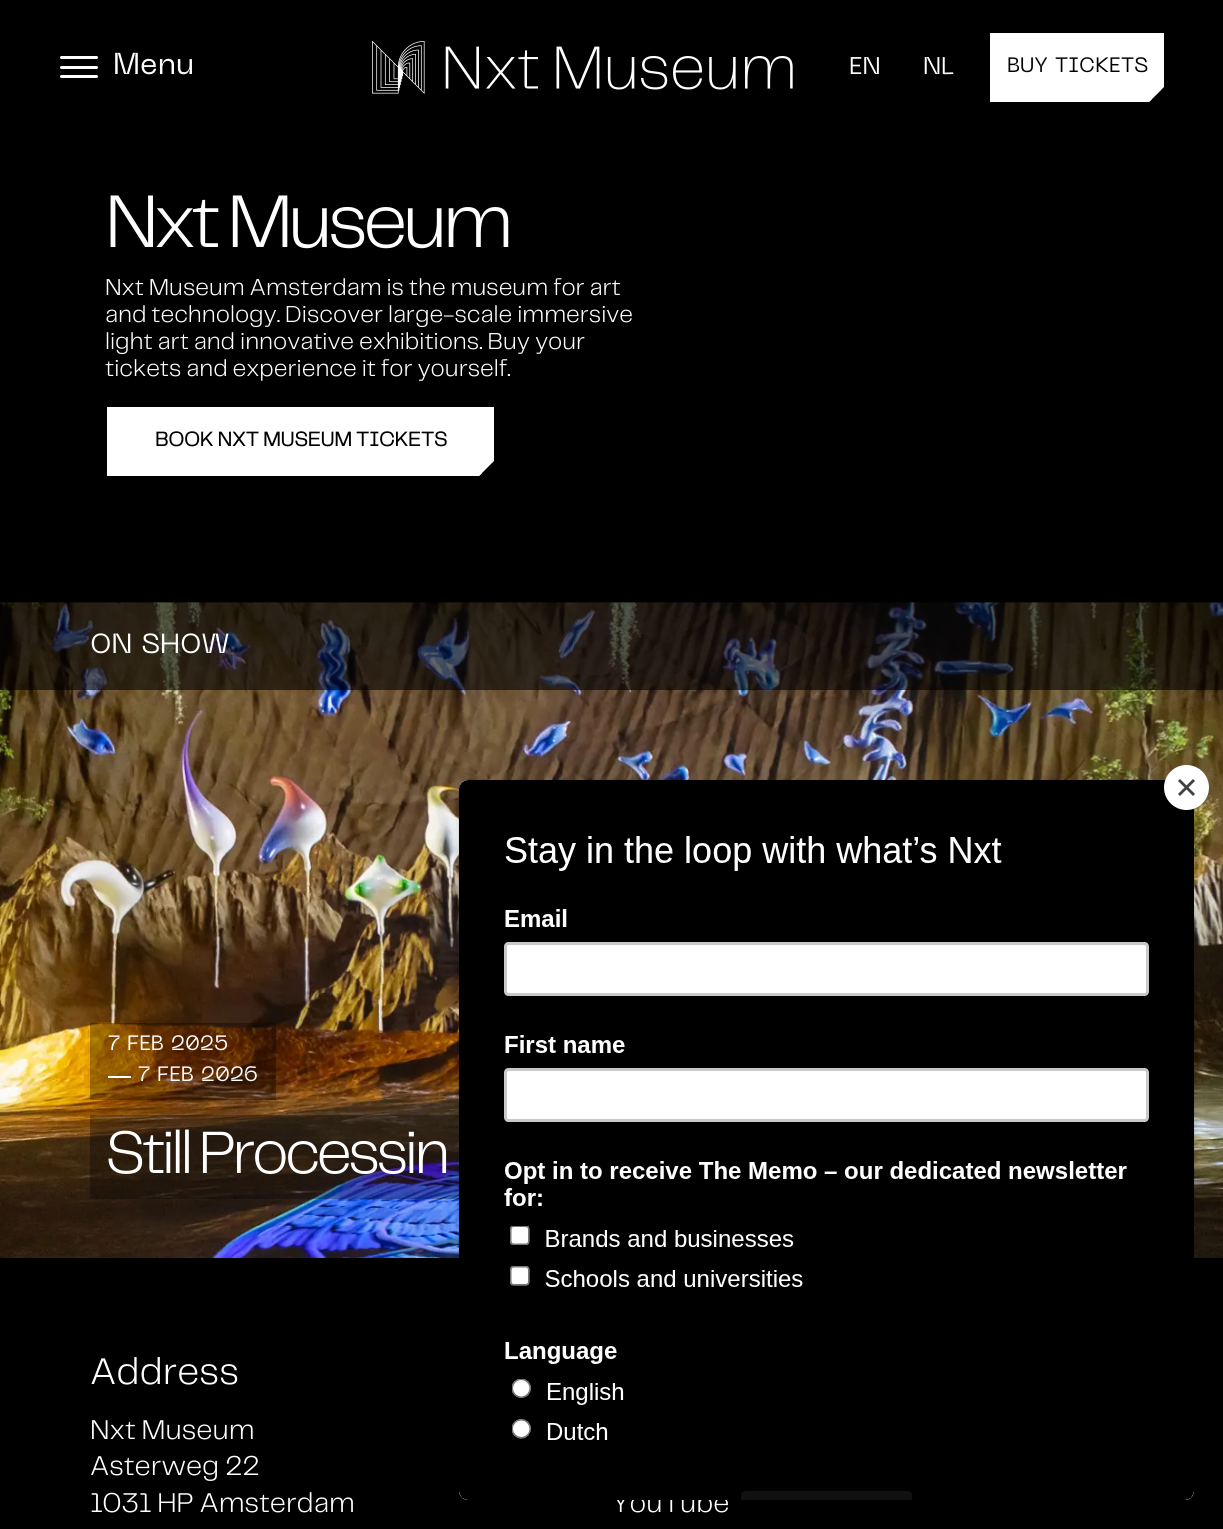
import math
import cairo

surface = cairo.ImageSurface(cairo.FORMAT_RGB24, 1223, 1529)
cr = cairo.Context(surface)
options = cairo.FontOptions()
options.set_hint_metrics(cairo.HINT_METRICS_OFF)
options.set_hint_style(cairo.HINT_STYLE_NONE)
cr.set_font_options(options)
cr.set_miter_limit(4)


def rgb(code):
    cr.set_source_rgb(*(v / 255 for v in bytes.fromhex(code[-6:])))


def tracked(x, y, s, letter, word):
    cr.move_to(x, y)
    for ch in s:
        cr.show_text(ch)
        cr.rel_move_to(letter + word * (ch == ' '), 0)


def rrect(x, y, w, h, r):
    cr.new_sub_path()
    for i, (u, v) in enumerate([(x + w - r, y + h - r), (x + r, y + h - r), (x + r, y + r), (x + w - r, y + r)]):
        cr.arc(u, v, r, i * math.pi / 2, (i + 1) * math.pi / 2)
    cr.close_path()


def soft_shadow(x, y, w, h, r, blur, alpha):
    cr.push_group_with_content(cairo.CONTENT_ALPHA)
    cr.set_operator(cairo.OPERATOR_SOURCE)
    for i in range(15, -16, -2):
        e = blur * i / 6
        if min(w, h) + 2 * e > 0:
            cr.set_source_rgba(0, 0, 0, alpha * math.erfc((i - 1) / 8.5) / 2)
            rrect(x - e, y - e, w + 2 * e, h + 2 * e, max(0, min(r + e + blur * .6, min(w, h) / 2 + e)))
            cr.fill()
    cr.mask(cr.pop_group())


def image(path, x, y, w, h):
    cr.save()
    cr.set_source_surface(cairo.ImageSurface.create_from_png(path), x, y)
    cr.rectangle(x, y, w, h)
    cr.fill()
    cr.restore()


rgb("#000000")
cr.paint()
rgb("#ffffff")
rrect(60, 56, 38, 3, 1.5)
cr.fill()
rrect(60, 66, 38, 3, 1.5)
cr.fill()
rrect(60, 75, 38, 3, 1.5)
cr.fill()
image("img/1.png", 372, 41, 421, 53)
cr.new_path()
cr.move_to(990, 33)
cr.line_to(990, 102)
cr.line_to(1149, 102)
cr.line_to(1161, 90)
cr.line_to(1161, 33)
cr.close_path()
cr.fill()
cr.new_path()
cr.move_to(990, 33)
cr.line_to(990, 102)
cr.line_to(1149, 102)
cr.line_to(1152, 99)
cr.line_to(993, 99)
cr.line_to(993, 36)
cr.line_to(1161, 36)
cr.line_to(1161, 90)
cr.line_to(1164, 87)
cr.line_to(1164, 33)
cr.close_path()
cr.fill()
cr.save()
cr.rectangle(993, 36, 168, 63)
cr.clip()
cr.new_path()
cr.move_to(1145.5, 101.5)
cr.line_to(1161.5, 85.5)
cr.line_to(1163.5, 87.5)
cr.line_to(1149, 101.5)
cr.close_path()
cr.fill()
cr.restore()
cr.save()
cr.rectangle(107, 407, 387, 69)
cr.clip()
cr.new_path()
cr.move_to(106, 407)
cr.line_to(491, 407)
cr.line_to(491, 464)
cr.line_to(479, 476)
cr.line_to(106, 476)
cr.close_path()
cr.fill()
cr.restore()
cr.new_path()
cr.move_to(110, 410)
cr.line_to(110, 473)
cr.line_to(482, 473)
cr.line_to(479, 476)
cr.line_to(107, 476)
cr.line_to(107, 407)
cr.line_to(494, 407)
cr.line_to(494, 461)
cr.line_to(491, 464)
cr.line_to(491, 410)
cr.close_path()
cr.fill()
image("img/2.png", 0, 602, 1223, 656)
cr.set_source_rgba(0, 0, 0, 0.6)
cr.rectangle(0, 603, 1223, 87)
cr.fill()
cr.set_source_rgba(0, 0, 0, 0.3)
cr.rectangle(90, 1023, 186, 77)
cr.fill()
rgb("#ffffff")
cr.rectangle(108, 1076, 23, 2)
cr.fill()
cr.set_source_rgba(0, 0, 0, 0.3)
cr.rectangle(90, 1115, 369, 84)
cr.fill()
rgb("#000000")
soft_shadow(459, 783, 735, 720, 9, 3, 0.2)
rgb("#ffffff")
rrect(459, 780, 735, 720, 9)
cr.fill()
cr.select_font_face("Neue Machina")
cr.set_font_size(30)
cr.move_to(113, 74)
cr.show_text("Menu")
cr.set_font_size(24)
cr.move_to(849, 74)
cr.show_text("EN")
cr.move_to(923, 74)
cr.show_text("NL")
cr.set_font_size(20.7)
rgb("#000000")
cr.move_to(1007, 72)
cr.show_text("BUY TICKETS")
cr.select_font_face("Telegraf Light")
cr.set_font_size(77.5)
rgb("#ffffff")
tracked(105, 247, "Nxt Museum", -4.75, 0)
cr.set_font_size(24)
for x, y, s in [
    (105, 295, "Nxt Museum Amsterdam is the museum for art"),
    (105, 322, "and technology. Discover large-scale immersive"),
    (105, 349, "light art and innovative exhibitions. Buy your"),
    (105, 376, "tickets and experience it for yourself."),
]:
    cr.move_to(x, y)
    cr.show_text(s)
cr.select_font_face("Telegraf", cairo.FONT_SLANT_NORMAL, cairo.FONT_WEIGHT_BOLD)
cr.set_font_size(20.7)
rgb("#000000")
cr.move_to(155, 446)
cr.show_text("BOOK NXT MUSEUM TICKETS")
cr.select_font_face("Neue Machina")
cr.set_font_size(27.5)
rgb("#ffffff")
cr.move_to(90, 653)
cr.show_text("ON SHOW")
cr.set_font_size(20.7)
cr.move_to(108, 1050)
cr.show_text("7 FEB 2025")
cr.move_to(138, 1081)
cr.show_text("7 FEB 2026")
cr.select_font_face("Telegraf Light")
cr.set_font_size(62)
tracked(105, 1173, "Still Processin", -3.75, 0)
cr.set_font_size(38.5)
cr.move_to(90, 1384)
cr.show_text("Address")
cr.set_font_size(28.25)
for x, y, s in [
    (90, 1439, "Nxt Museum"),
    (90, 1475, "Asterweg 22"),
    (90, 1512, "1031 HP Amsterdam"),
    (612, 1512, "YouTube"),
]:
    cr.move_to(x, y)
    cr.show_text(s)
image("img/3.png", 459, 780, 735, 720)
rgb("#000000")
soft_shadow(1164, 768, 45, 45, 22.5, 1.5, 0.2)
rgb("#ffffff")
cr.arc(1186.5, 787.5, 22.5, 0, 2 * math.pi)
cr.fill()
rgb("#414141")
cr.new_path()
cr.move_to(1193, 779)
cr.line_to(1195, 781)
cr.line_to(1180, 796)
cr.line_to(1178, 794)
cr.close_path()
cr.fill()
cr.new_path()
cr.move_to(1178, 781)
cr.line_to(1180, 779)
cr.line_to(1195, 794)
cr.line_to(1193, 796)
cr.close_path()
cr.fill()
surface.write_to_png("page.png")
